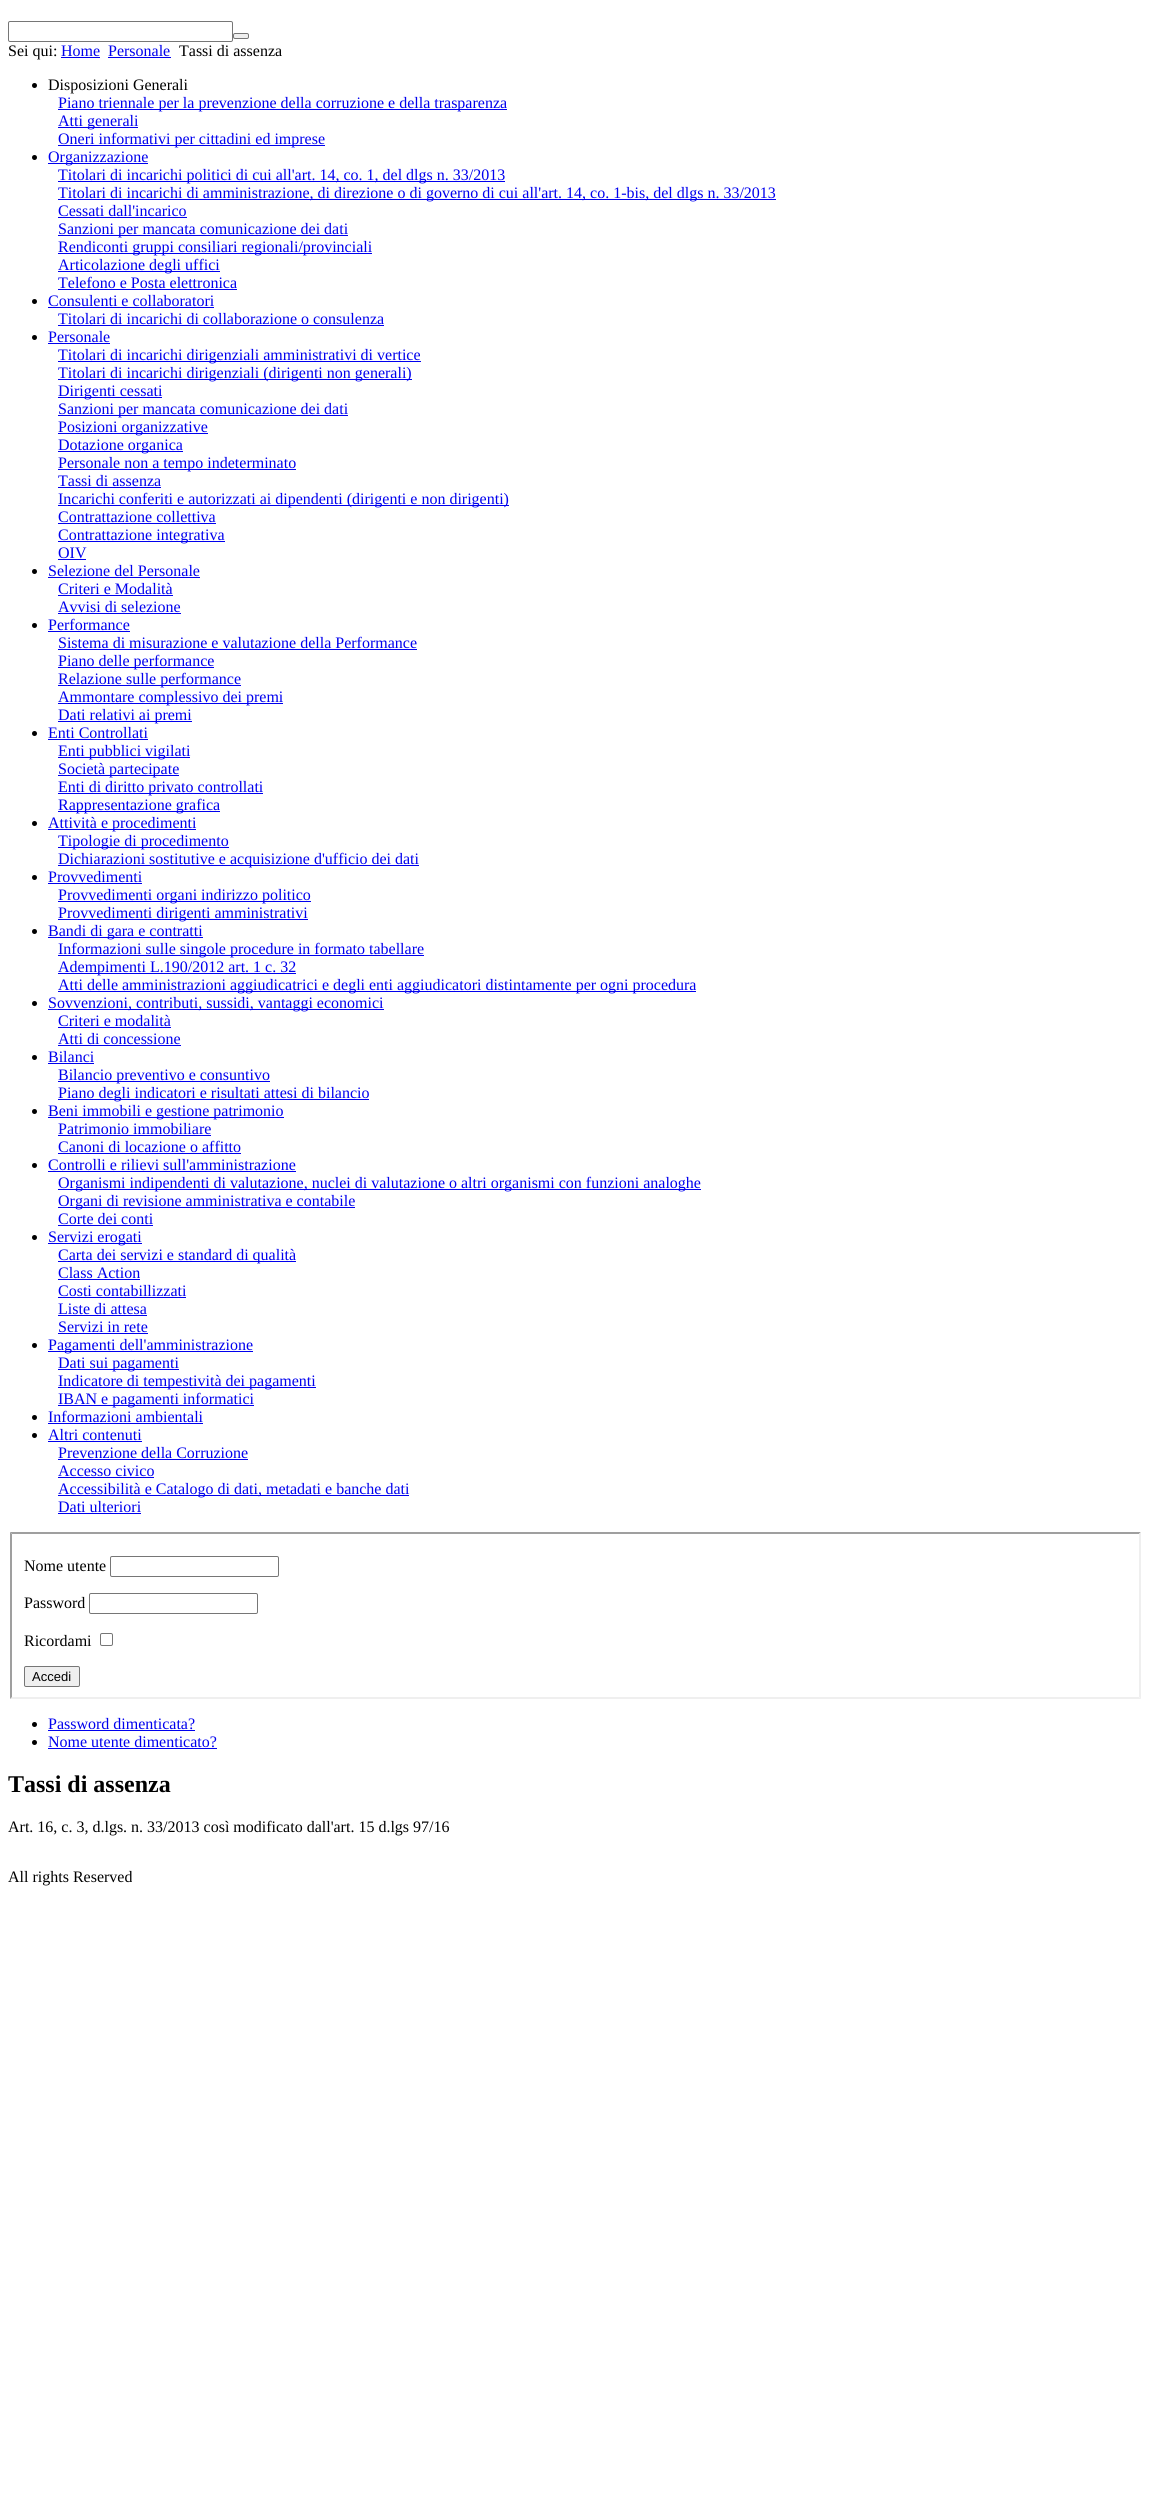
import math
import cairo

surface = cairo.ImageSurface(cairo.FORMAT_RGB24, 1151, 2497)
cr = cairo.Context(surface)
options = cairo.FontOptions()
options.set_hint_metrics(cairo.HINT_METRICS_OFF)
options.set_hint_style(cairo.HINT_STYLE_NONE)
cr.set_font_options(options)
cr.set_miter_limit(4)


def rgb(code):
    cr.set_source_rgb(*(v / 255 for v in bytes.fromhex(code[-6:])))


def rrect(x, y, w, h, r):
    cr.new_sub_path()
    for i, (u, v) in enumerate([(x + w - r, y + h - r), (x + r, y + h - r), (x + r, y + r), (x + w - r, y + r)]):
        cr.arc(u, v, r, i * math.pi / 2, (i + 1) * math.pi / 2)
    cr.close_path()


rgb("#ffffff")
cr.paint()
rrect(8.5, 21.5, 224, 20, 1.5)
rgb("#767676")
cr.set_line_width(1)
cr.stroke()
rgb("#efefef")
rrect(233.5, 33.5, 15, 5, 1.5)
cr.fill_preserve()
rgb("#767676")
cr.stroke()
rgb("#0000ee")
cr.rectangle(61, 57, 39, 1)
cr.fill()
cr.rectangle(108, 57, 63, 1)
cr.fill()
rgb("#000000")
cr.arc(34.5, 85.5, 2.5, 0, 2 * math.pi)
cr.fill()
for x, y, w, h, color in [
    (58, 109, 449, 1, "#0000ee"),
    (58, 127, 80, 1, "#0000ee"),
    (58, 145, 267, 1, "#0000ee"),
]:
    rgb(color)
    cr.rectangle(x, y, w, h)
    cr.fill()
rgb("#000000")
cr.arc(34.5, 157.5, 2.5, 0, 2 * math.pi)
cr.fill()
for x, y, w, h, color in [
    (48, 163, 100, 1, "#0000ee"),
    (58, 181, 447, 1, "#0000ee"),
    (58, 199, 718, 1, "#0000ee"),
    (58, 217, 129, 1, "#0000ee"),
    (58, 235, 290, 1, "#0000ee"),
    (58, 253, 314, 1, "#0000ee"),
    (58, 271, 162, 1, "#0000ee"),
    (58, 289, 179, 1, "#0000ee"),
]:
    rgb(color)
    cr.rectangle(x, y, w, h)
    cr.fill()
rgb("#000000")
cr.arc(34.5, 301.5, 2.5, 0, 2 * math.pi)
cr.fill()
rgb("#0000ee")
cr.rectangle(48, 307, 166, 1)
cr.fill()
cr.rectangle(58, 325, 326, 1)
cr.fill()
rgb("#000000")
cr.arc(34.5, 337.5, 2.5, 0, 2 * math.pi)
cr.fill()
for x, y, w, h, color in [
    (48, 343, 62, 1, "#0000ee"),
    (58, 361, 363, 1, "#0000ee"),
    (58, 379, 354, 1, "#0000ee"),
    (58, 397, 104, 1, "#0000ee"),
    (58, 415, 290, 1, "#0000ee"),
    (58, 433, 150, 1, "#0000ee"),
    (58, 451, 125, 1, "#0000ee"),
    (58, 469, 238, 1, "#0000ee"),
    (58, 487, 103, 1, "#0000ee"),
    (58, 505, 451, 1, "#0000ee"),
    (58, 523, 158, 1, "#0000ee"),
    (58, 541, 167, 1, "#0000ee"),
    (58, 559, 28, 1, "#0000ee"),
]:
    rgb(color)
    cr.rectangle(x, y, w, h)
    cr.fill()
rgb("#000000")
cr.arc(34.5, 571.5, 2.5, 0, 2 * math.pi)
cr.fill()
for x, y, w, h, color in [
    (48, 577, 152, 1, "#0000ee"),
    (58, 595, 115, 1, "#0000ee"),
    (58, 613, 123, 1, "#0000ee"),
]:
    rgb(color)
    cr.rectangle(x, y, w, h)
    cr.fill()
rgb("#000000")
cr.arc(34.5, 625.5, 2.5, 0, 2 * math.pi)
cr.fill()
for x, y, w, h, color in [
    (48, 631, 82, 1, "#0000ee"),
    (58, 649, 359, 1, "#0000ee"),
    (58, 667, 156, 1, "#0000ee"),
    (58, 685, 183, 1, "#0000ee"),
    (58, 703, 225, 1, "#0000ee"),
    (58, 721, 134, 1, "#0000ee"),
]:
    rgb(color)
    cr.rectangle(x, y, w, h)
    cr.fill()
rgb("#000000")
cr.arc(34.5, 733.5, 2.5, 0, 2 * math.pi)
cr.fill()
for x, y, w, h, color in [
    (48, 739, 100, 1, "#0000ee"),
    (58, 757, 132, 1, "#0000ee"),
    (58, 775, 121, 1, "#0000ee"),
    (58, 793, 205, 1, "#0000ee"),
    (58, 811, 162, 1, "#0000ee"),
]:
    rgb(color)
    cr.rectangle(x, y, w, h)
    cr.fill()
rgb("#000000")
cr.arc(34.5, 823.5, 2.5, 0, 2 * math.pi)
cr.fill()
for x, y, w, h, color in [
    (48, 829, 148, 1, "#0000ee"),
    (58, 847, 171, 1, "#0000ee"),
    (58, 865, 361, 1, "#0000ee"),
]:
    rgb(color)
    cr.rectangle(x, y, w, h)
    cr.fill()
rgb("#000000")
cr.arc(34.5, 877.5, 2.5, 0, 2 * math.pi)
cr.fill()
for x, y, w, h, color in [
    (48, 883, 94, 1, "#0000ee"),
    (58, 901, 253, 1, "#0000ee"),
    (58, 919, 250, 1, "#0000ee"),
]:
    rgb(color)
    cr.rectangle(x, y, w, h)
    cr.fill()
rgb("#000000")
cr.arc(34.5, 931.5, 2.5, 0, 2 * math.pi)
cr.fill()
for x, y, w, h, color in [
    (48, 937, 155, 1, "#0000ee"),
    (58, 955, 366, 1, "#0000ee"),
    (58, 973, 238, 1, "#0000ee"),
    (58, 991, 638, 1, "#0000ee"),
]:
    rgb(color)
    cr.rectangle(x, y, w, h)
    cr.fill()
rgb("#000000")
cr.arc(34.5, 1003.5, 2.5, 0, 2 * math.pi)
cr.fill()
for x, y, w, h, color in [
    (48, 1009, 336, 1, "#0000ee"),
    (58, 1027, 113, 1, "#0000ee"),
    (58, 1045, 123, 1, "#0000ee"),
]:
    rgb(color)
    cr.rectangle(x, y, w, h)
    cr.fill()
rgb("#000000")
cr.arc(34.5, 1057.5, 2.5, 0, 2 * math.pi)
cr.fill()
for x, y, w, h, color in [
    (48, 1063, 46, 1, "#0000ee"),
    (58, 1081, 212, 1, "#0000ee"),
    (58, 1099, 311, 1, "#0000ee"),
]:
    rgb(color)
    cr.rectangle(x, y, w, h)
    cr.fill()
rgb("#000000")
cr.arc(34.5, 1111.5, 2.5, 0, 2 * math.pi)
cr.fill()
for x, y, w, h, color in [
    (48, 1117, 236, 1, "#0000ee"),
    (58, 1135, 153, 1, "#0000ee"),
    (58, 1153, 183, 1, "#0000ee"),
]:
    rgb(color)
    cr.rectangle(x, y, w, h)
    cr.fill()
rgb("#000000")
cr.arc(34.5, 1165.5, 2.5, 0, 2 * math.pi)
cr.fill()
for x, y, w, h, color in [
    (48, 1171, 248, 1, "#0000ee"),
    (58, 1189, 643, 1, "#0000ee"),
    (58, 1207, 297, 1, "#0000ee"),
    (58, 1225, 95, 1, "#0000ee"),
]:
    rgb(color)
    cr.rectangle(x, y, w, h)
    cr.fill()
rgb("#000000")
cr.arc(34.5, 1237.5, 2.5, 0, 2 * math.pi)
cr.fill()
for x, y, w, h, color in [
    (48, 1243, 94, 1, "#0000ee"),
    (58, 1261, 238, 1, "#0000ee"),
    (58, 1279, 82, 1, "#0000ee"),
    (58, 1297, 128, 1, "#0000ee"),
    (58, 1315, 89, 1, "#0000ee"),
    (58, 1333, 90, 1, "#0000ee"),
]:
    rgb(color)
    cr.rectangle(x, y, w, h)
    cr.fill()
rgb("#000000")
cr.arc(34.5, 1345.5, 2.5, 0, 2 * math.pi)
cr.fill()
for x, y, w, h, color in [
    (48, 1351, 205, 1, "#0000ee"),
    (58, 1369, 121, 1, "#0000ee"),
    (58, 1387, 258, 1, "#0000ee"),
    (58, 1405, 196, 1, "#0000ee"),
]:
    rgb(color)
    cr.rectangle(x, y, w, h)
    cr.fill()
rgb("#000000")
cr.arc(34.5, 1417.5, 2.5, 0, 2 * math.pi)
cr.fill()
rgb("#0000ee")
cr.rectangle(48, 1423, 155, 1)
cr.fill()
rgb("#000000")
cr.arc(34.5, 1435.5, 2.5, 0, 2 * math.pi)
cr.fill()
for x, y, w, h, color in [
    (48, 1441, 94, 1, "#0000ee"),
    (58, 1459, 190, 1, "#0000ee"),
    (58, 1477, 96, 1, "#0000ee"),
    (58, 1495, 351, 1, "#0000ee"),
    (58, 1513, 83, 1, "#0000ee"),
]:
    rgb(color)
    cr.rectangle(x, y, w, h)
    cr.fill()
rgb("#9f9f9f")
cr.new_path()
cr.move_to(10, 1532)
cr.line_to(1141, 1532)
cr.line_to(1139, 1534)
cr.line_to(12, 1534)
cr.close_path()
cr.fill()
rgb("#efefef")
cr.new_path()
cr.move_to(1141, 1532)
cr.line_to(1141, 1699)
cr.line_to(1139, 1697)
cr.line_to(1139, 1534)
cr.close_path()
cr.fill()
cr.new_path()
cr.move_to(1141, 1699)
cr.line_to(10, 1699)
cr.line_to(12, 1697)
cr.line_to(1139, 1697)
cr.close_path()
cr.fill()
rgb("#9f9f9f")
cr.new_path()
cr.move_to(10, 1699)
cr.line_to(10, 1532)
cr.line_to(12, 1534)
cr.line_to(12, 1697)
cr.close_path()
cr.fill()
rrect(110.5, 1556.5, 168, 20, 1.5)
rgb("#767676")
cr.stroke()
rrect(89.5, 1593.5, 168, 20, 1.5)
cr.stroke()
rrect(100.5, 1633.5, 12, 12, 1.5)
cr.stroke()
rgb("#efefef")
rrect(24.5, 1666.5, 55, 20, 1.5)
cr.fill_preserve()
rgb("#767676")
cr.stroke()
rgb("#000000")
cr.arc(34.5, 1724.5, 2.5, 0, 2 * math.pi)
cr.fill()
rgb("#0000ee")
cr.rectangle(48, 1730, 147, 1)
cr.fill()
rgb("#000000")
cr.arc(34.5, 1742.5, 2.5, 0, 2 * math.pi)
cr.fill()
rgb("#0000ee")
cr.rectangle(48, 1748, 169, 1)
cr.fill()
cr.select_font_face("Liberation Serif")
cr.set_font_size(16)
rgb("#000000")
cr.move_to(8, 56)
cr.show_text("Sei qui:")
rgb("#0000ee")
cr.move_to(61, 56)
cr.show_text("Home")
cr.move_to(108, 56)
cr.show_text("Personale")
rgb("#000000")
cr.move_to(179, 56)
cr.show_text("Tassi di assenza")
cr.move_to(48, 90)
cr.show_text("Disposizioni Generali")
rgb("#0000ee")
for x, y, s in [
    (58, 108, "Piano triennale per la prevenzione della corruzione e della trasparenza"),
    (58, 126, "Atti generali"),
    (58, 144, "Oneri informativi per cittadini ed imprese"),
    (48, 162, "Organizzazione"),
    (58, 180, "Titolari di incarichi politici di cui all'art. 14, co. 1, del dlgs n. 33/2013"),
    (58, 198, "Titolari di incarichi di amministrazione, di direzione o di governo di cui all'art. 14, co. 1-bis, del dlgs n. 33/2013"),
    (58, 216, "Cessati dall'incarico"),
    (58, 234, "Sanzioni per mancata comunicazione dei dati"),
    (58, 252, "Rendiconti gruppi consiliari regionali/provinciali"),
    (58, 270, "Articolazione degli uffici"),
    (58, 288, "Telefono e Posta elettronica"),
    (48, 306, "Consulenti e collaboratori"),
    (58, 324, "Titolari di incarichi di collaborazione o consulenza"),
    (48, 342, "Personale"),
    (58, 360, "Titolari di incarichi dirigenziali amministrativi di vertice"),
    (58, 378, "Titolari di incarichi dirigenziali (dirigenti non generali)"),
    (58, 396, "Dirigenti cessati"),
    (58, 414, "Sanzioni per mancata comunicazione dei dati"),
    (58, 432, "Posizioni organizzative"),
    (58, 450, "Dotazione organica"),
    (58, 468, "Personale non a tempo indeterminato"),
    (58, 486, "Tassi di assenza"),
    (58, 504, "Incarichi conferiti e autorizzati ai dipendenti (dirigenti e non dirigenti)"),
    (58, 522, "Contrattazione collettiva"),
    (58, 540, "Contrattazione integrativa"),
    (58, 558, "OIV"),
    (48, 576, "Selezione del Personale"),
    (58, 594, "Criteri e Modalità"),
    (58, 612, "Avvisi di selezione"),
    (48, 630, "Performance"),
    (58, 648, "Sistema di misurazione e valutazione della Performance"),
    (58, 666, "Piano delle performance"),
    (58, 684, "Relazione sulle performance"),
    (58, 702, "Ammontare complessivo dei premi"),
    (58, 720, "Dati relativi ai premi"),
    (48, 738, "Enti Controllati"),
    (58, 756, "Enti pubblici vigilati"),
    (58, 774, "Società partecipate"),
    (58, 792, "Enti di diritto privato controllati"),
    (58, 810, "Rappresentazione grafica"),
    (48, 828, "Attività e procedimenti"),
    (58, 846, "Tipologie di procedimento"),
    (58, 864, "Dichiarazioni sostitutive e acquisizione d'ufficio dei dati"),
    (48, 882, "Provvedimenti"),
    (58, 900, "Provvedimenti organi indirizzo politico"),
    (58, 918, "Provvedimenti dirigenti amministrativi"),
    (48, 936, "Bandi di gara e contratti"),
    (58, 954, "Informazioni sulle singole procedure in formato tabellare"),
    (58, 972, "Adempimenti L.190/2012 art. 1 c. 32"),
    (58, 990, "Atti delle amministrazioni aggiudicatrici e degli enti aggiudicatori distintamente per ogni procedura"),
    (48, 1008, "Sovvenzioni, contributi, sussidi, vantaggi economici"),
    (58, 1026, "Criteri e modalità"),
    (58, 1044, "Atti di concessione"),
    (48, 1062, "Bilanci"),
    (58, 1080, "Bilancio preventivo e consuntivo"),
    (58, 1098, "Piano degli indicatori e risultati attesi di bilancio"),
    (48, 1116, "Beni immobili e gestione patrimonio"),
    (58, 1134, "Patrimonio immobiliare"),
    (58, 1152, "Canoni di locazione o affitto"),
    (48, 1170, "Controlli e rilievi sull'amministrazione"),
    (58, 1188, "Organismi indipendenti di valutazione, nuclei di valutazione o altri organismi con funzioni analoghe"),
    (58, 1206, "Organi di revisione amministrativa e contabile"),
    (58, 1224, "Corte dei conti"),
    (48, 1242, "Servizi erogati"),
    (58, 1260, "Carta dei servizi e standard di qualità"),
    (58, 1278, "Class Action"),
    (58, 1296, "Costi contabillizzati"),
    (58, 1314, "Liste di attesa"),
    (58, 1332, "Servizi in rete"),
    (48, 1350, "Pagamenti dell'amministrazione"),
    (58, 1368, "Dati sui pagamenti"),
    (58, 1386, "Indicatore di tempestività dei pagamenti"),
    (58, 1404, "IBAN e pagamenti informatici"),
    (48, 1422, "Informazioni ambientali"),
    (48, 1440, "Altri contenuti"),
    (58, 1458, "Prevenzione della Corruzione"),
    (58, 1476, "Accesso civico"),
    (58, 1494, "Accessibilità e Catalogo di dati, metadati e banche dati"),
    (58, 1512, "Dati ulteriori"),
]:
    cr.move_to(x, y)
    cr.show_text(s)
rgb("#000000")
for x, y, s in [
    (24, 1571, "Nome utente"),
    (24, 1608, "Password"),
    (24, 1646, "Ricordami"),
]:
    cr.move_to(x, y)
    cr.show_text(s)
cr.select_font_face("Liberation Sans")
cr.set_font_size(13)
cr.move_to(32, 1681)
cr.show_text("Accedi")
cr.select_font_face("Liberation Serif")
cr.set_font_size(16)
rgb("#0000ee")
cr.move_to(48, 1729)
cr.show_text("Password dimenticata?")
cr.move_to(48, 1747)
cr.show_text("Nome utente dimenticato?")
cr.select_font_face("Liberation Serif", cairo.FONT_SLANT_NORMAL, cairo.FONT_WEIGHT_BOLD)
cr.set_font_size(24)
rgb("#000000")
cr.move_to(8, 1792)
cr.show_text("Tassi di assenza")
cr.select_font_face("Liberation Serif")
cr.set_font_size(16)
cr.move_to(8, 1832)
cr.show_text("Art. 16, c. 3, d.lgs. n. 33/2013 così modificato dall'art. 15 d.lgs 97/16")
cr.move_to(8, 1882)
cr.show_text("All rights Reserved")
surface.write_to_png("page.png")
